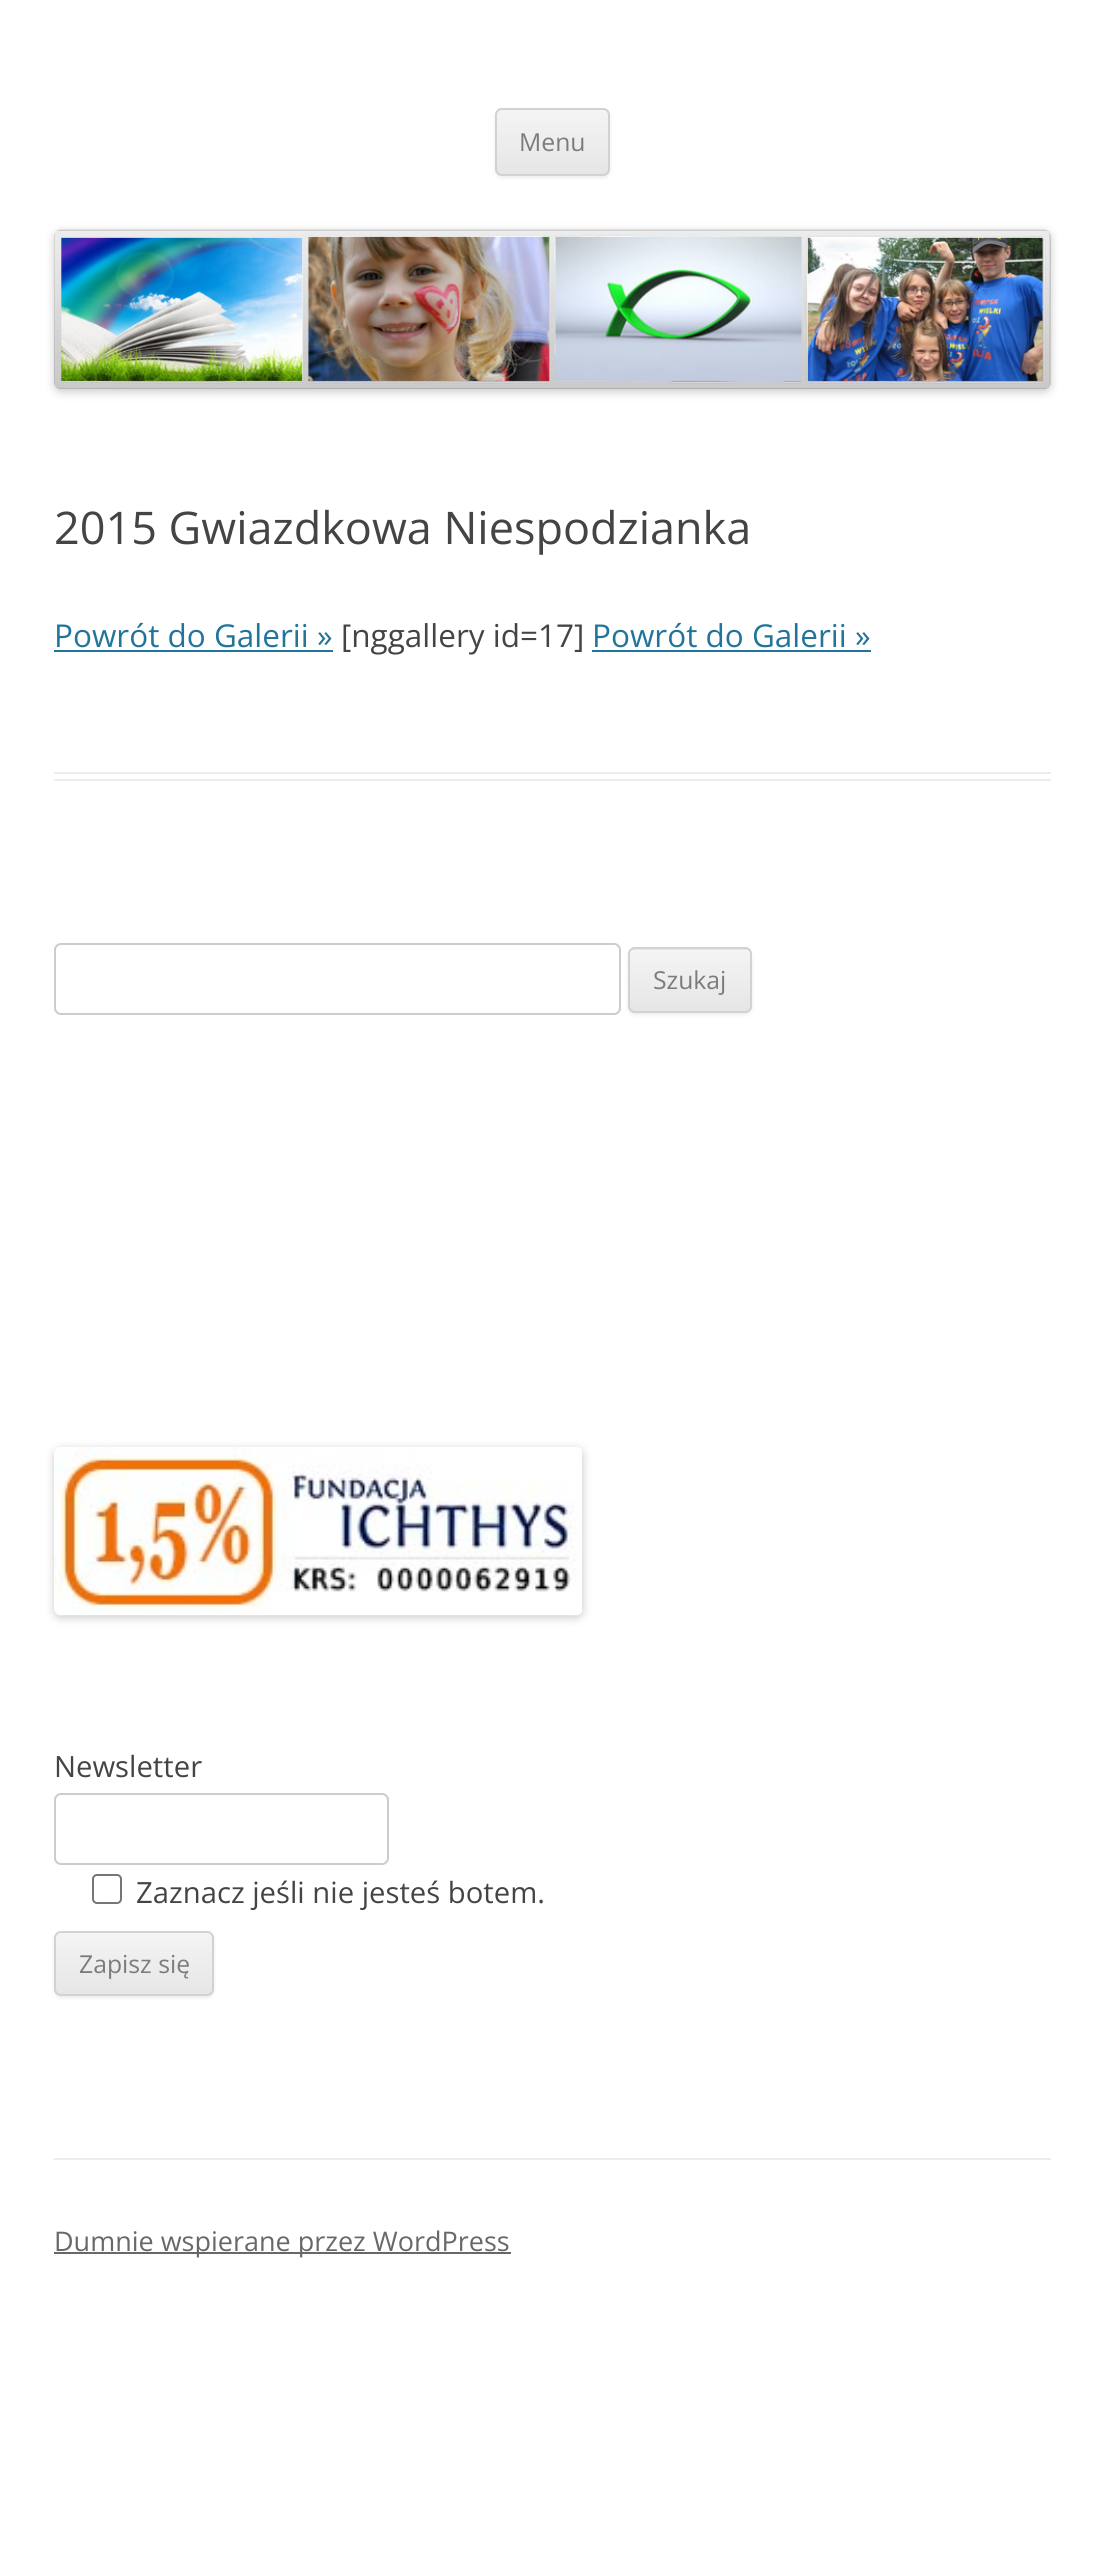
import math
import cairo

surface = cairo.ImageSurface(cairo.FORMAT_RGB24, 1104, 2562)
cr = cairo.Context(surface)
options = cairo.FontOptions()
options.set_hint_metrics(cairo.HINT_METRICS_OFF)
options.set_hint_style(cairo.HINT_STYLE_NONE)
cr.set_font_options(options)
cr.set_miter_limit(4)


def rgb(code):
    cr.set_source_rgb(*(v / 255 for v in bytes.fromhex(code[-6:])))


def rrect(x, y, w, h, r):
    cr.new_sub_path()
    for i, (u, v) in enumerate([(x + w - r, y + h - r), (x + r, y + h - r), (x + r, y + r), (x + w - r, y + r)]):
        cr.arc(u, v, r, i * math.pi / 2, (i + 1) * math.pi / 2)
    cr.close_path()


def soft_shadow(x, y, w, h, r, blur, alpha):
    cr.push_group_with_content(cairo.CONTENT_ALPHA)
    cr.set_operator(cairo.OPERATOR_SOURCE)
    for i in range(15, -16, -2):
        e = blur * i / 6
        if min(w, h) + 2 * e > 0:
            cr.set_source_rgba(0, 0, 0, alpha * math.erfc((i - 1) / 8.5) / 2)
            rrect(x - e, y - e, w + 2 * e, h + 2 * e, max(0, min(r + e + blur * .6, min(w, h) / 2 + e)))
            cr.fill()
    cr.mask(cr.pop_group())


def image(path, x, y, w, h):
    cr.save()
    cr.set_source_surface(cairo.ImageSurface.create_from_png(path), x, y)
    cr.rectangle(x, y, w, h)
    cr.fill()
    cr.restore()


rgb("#ffffff")
cr.paint()
rgb("#404040")
soft_shadow(495, 110, 115, 68, 7, 2, 0.1)
rgb("#e6e6e6")
rrect(495, 108, 115, 68, 7)
cr.fill()
cr.save()
rrect(495, 108, 115, 68, 7)
cr.clip()
gradient = cairo.LinearGradient(552, 110, 552, 173)
gradient.add_color_stop_rgba(0, 0.957, 0.957, 0.957, 1)
gradient.add_color_stop_rgba(1, 0.902, 0.902, 0.902, 1)
cr.set_source(gradient)
cr.rectangle(495, 110, 115, 63)
cr.fill()
cr.restore()
rrect(496, 109, 113, 66, 6)
rgb("#d2d2d2")
cr.stroke()
rgb("#000000")
soft_shadow(54, 232, 997, 160, 7, 4.5, 0.2)
image("img/1.png", 54, 229, 997, 160)
for x, y, w, h, color in [
    (54, 772, 997, 2, "#ededed"),
    (54, 779, 997, 2, "#ededed"),
    (54, 650, 279, 2, "#21759b"),
    (592, 650, 279, 2, "#21759b"),
]:
    rgb(color)
    cr.rectangle(x, y, w, h)
    cr.fill()
rrect(55, 944, 565, 70, 6)
rgb("#cccccc")
cr.stroke()
rgb("#404040")
soft_shadow(628, 950, 124, 65, 7, 2, 0.1)
rgb("#e6e6e6")
rrect(628, 947, 124, 66, 7)
cr.fill()
cr.save()
rrect(628, 947, 124, 66, 7)
cr.clip()
gradient = cairo.LinearGradient(690, 950, 690, 1010)
gradient.add_color_stop_rgba(0, 0.957, 0.957, 0.957, 1)
gradient.add_color_stop_rgba(1, 0.902, 0.902, 0.902, 1)
cr.set_source(gradient)
cr.rectangle(628, 950, 124, 60)
cr.fill()
cr.restore()
rrect(629, 948, 122, 64, 6)
rgb("#d2d2d2")
cr.stroke()
rgb("#000000")
soft_shadow(54, 1449, 529, 169, 7, 4.5, 0.2)
image("img/2.png", 54, 1447, 528, 169)
rrect(55, 1794, 333, 70, 6)
rgb("#cccccc")
cr.stroke()
rrect(93, 1875, 28, 28, 4)
rgb("#767676")
cr.stroke()
rgb("#404040")
soft_shadow(54, 1933, 160, 65, 7, 2, 0.1)
cr.save()
rrect(54, 1931, 160, 65, 7)
cr.clip()
gradient = cairo.LinearGradient(134, 1933, 134, 1994)
gradient.add_color_stop_rgba(0, 0.957, 0.957, 0.957, 1)
gradient.add_color_stop_rgba(1, 0.902, 0.902, 0.902, 1)
cr.set_source(gradient)
cr.rectangle(54, 1933, 160, 61)
cr.fill()
cr.restore()
rrect(55, 1932, 158, 63, 6)
rgb("#d2d2d2")
cr.stroke()
rgb("#ededed")
cr.rectangle(54, 2158, 997, 2)
cr.fill()
rgb("#686868")
cr.rectangle(54, 2252, 457, 2)
cr.fill()
cr.select_font_face("Open Sans")
cr.set_font_size(24.75)
rgb("#7c7c7c")
cr.move_to(519, 151)
cr.show_text("Menu")
cr.set_font_size(45)
rgb("#444444")
cr.move_to(54, 544)
cr.show_text("2015 Gwiazdkowa Niespodzianka")
cr.set_font_size(31.5)
rgb("#21759b")
cr.move_to(54, 647)
cr.show_text("Powrót do Galerii »")
rgb("#444444")
cr.move_to(341, 647)
cr.show_text("[nggallery id=17]")
rgb("#21759b")
cr.move_to(592, 647)
cr.show_text("Powrót do Galerii »")
cr.set_font_size(24.75)
rgb("#7c7c7c")
cr.move_to(653, 989)
cr.show_text("Szukaj")
cr.set_font_size(29.25)
rgb("#444444")
cr.move_to(54, 1777)
cr.show_text("Newsletter")
cr.move_to(136, 1903)
cr.show_text("Zaznacz jeśli nie jesteś botem.")
cr.set_font_size(24.75)
rgb("#7c7c7c")
cr.move_to(79, 1973)
cr.show_text("Zapisz się")
cr.set_font_size(27)
rgb("#686868")
cr.move_to(54, 2251)
cr.show_text("Dumnie wspierane przez WordPress")
surface.write_to_png("page.png")
